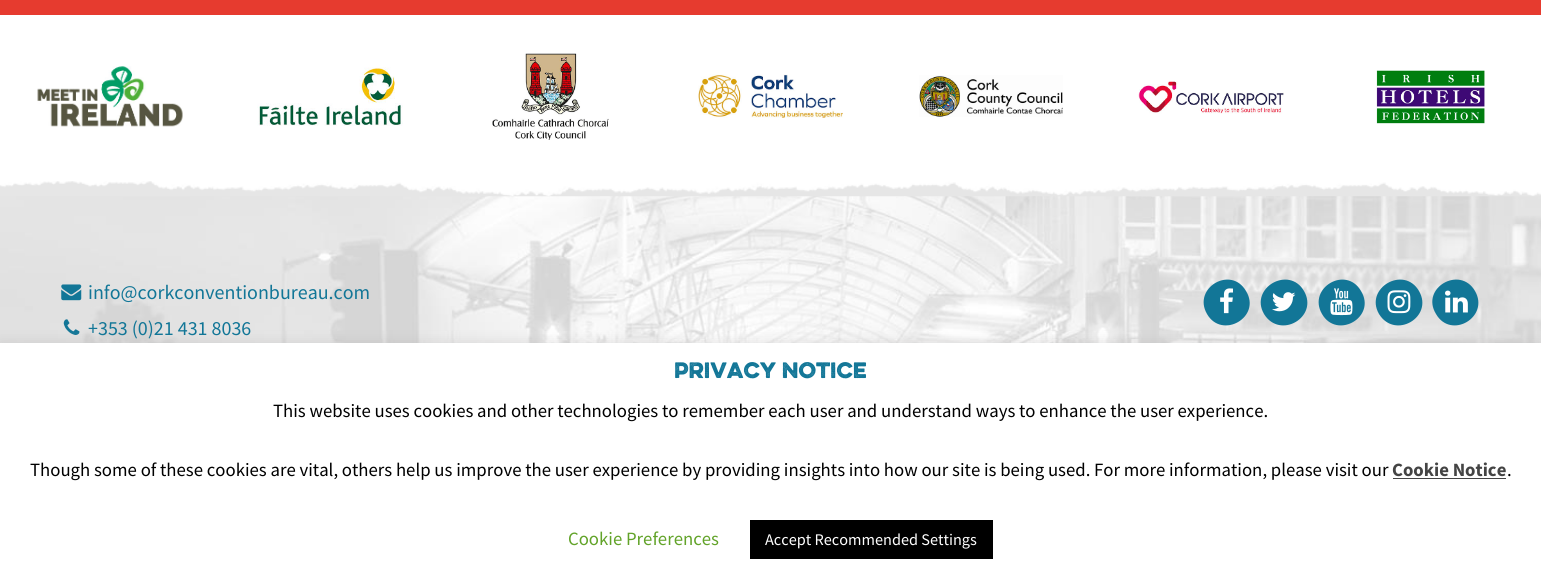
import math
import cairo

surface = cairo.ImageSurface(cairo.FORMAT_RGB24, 1541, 580)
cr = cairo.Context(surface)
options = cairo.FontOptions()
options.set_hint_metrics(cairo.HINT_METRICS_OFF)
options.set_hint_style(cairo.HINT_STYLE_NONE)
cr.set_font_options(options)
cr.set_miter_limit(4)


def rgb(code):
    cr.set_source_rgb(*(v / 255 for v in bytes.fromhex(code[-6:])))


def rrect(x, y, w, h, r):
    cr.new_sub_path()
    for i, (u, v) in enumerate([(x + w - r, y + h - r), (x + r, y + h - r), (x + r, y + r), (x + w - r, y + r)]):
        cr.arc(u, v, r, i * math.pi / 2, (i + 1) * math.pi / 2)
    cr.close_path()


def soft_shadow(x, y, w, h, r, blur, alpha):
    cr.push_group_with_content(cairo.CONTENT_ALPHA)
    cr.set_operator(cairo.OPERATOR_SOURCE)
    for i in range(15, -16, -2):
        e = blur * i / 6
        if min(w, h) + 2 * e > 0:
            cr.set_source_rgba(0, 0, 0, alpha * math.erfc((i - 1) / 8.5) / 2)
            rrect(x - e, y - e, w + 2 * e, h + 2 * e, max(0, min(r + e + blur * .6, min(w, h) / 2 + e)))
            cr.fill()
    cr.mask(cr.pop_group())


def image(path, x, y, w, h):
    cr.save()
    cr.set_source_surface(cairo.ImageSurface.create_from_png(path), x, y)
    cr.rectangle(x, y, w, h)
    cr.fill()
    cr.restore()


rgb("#ffffff")
cr.paint()
rgb("#e63b2f")
cr.rectangle(0, 0, 1541, 15)
cr.fill()
image("img/1.png", 0, 181, 1541, 16)
image("img/2.png", 37, 66, 146, 61)
image("img/3.png", 257, 67, 146, 59)
image("img/4.png", 492, 53, 117, 87)
image("img/5.png", 698, 74, 145, 44)
image("img/6.png", 919, 75, 144, 42)
image("img/7.png", 1138, 81, 146, 33)
image("img/8.png", 1376, 70, 109, 54)
image("img/9.png", 0, 196, 1541, 147)
image("img/10.png", 61, 284, 21, 17)
image("img/11.png", 63, 319, 17, 16)
rgb("#127697")
cr.new_path()
cr.move_to(1246, 291)
cr.curve_to(1262, 317, 1222, 340, 1207, 314)
cr.curve_to(1192, 288, 1231, 265, 1246, 291)
cr.close_path()
cr.fill()
image("img/12.png", 1220, 288, 13, 26)
cr.new_path()
cr.move_to(1304, 291)
cr.curve_to(1319, 317, 1280, 340, 1264, 314)
cr.curve_to(1249, 288, 1289, 265, 1304, 291)
cr.close_path()
cr.fill()
image("img/13.png", 1272, 292, 24, 20)
cr.new_path()
cr.move_to(1361, 291)
cr.curve_to(1377, 317, 1337, 340, 1322, 314)
cr.curve_to(1307, 288, 1346, 265, 1361, 291)
cr.close_path()
cr.fill()
image("img/14.png", 1330, 288, 23, 28)
cr.new_path()
cr.move_to(1419, 291)
cr.curve_to(1434, 317, 1395, 340, 1379, 314)
cr.curve_to(1364, 288, 1404, 265, 1419, 291)
cr.close_path()
cr.fill()
image("img/15.png", 1387, 290, 24, 24)
cr.new_path()
cr.move_to(1475, 291)
cr.curve_to(1490, 317, 1451, 340, 1436, 314)
cr.curve_to(1420, 288, 1460, 265, 1475, 291)
cr.close_path()
cr.fill()
image("img/16.png", 1445, 290, 23, 23)
rgb("#acabab")
soft_shadow(0, 341, 1541, 238, 0, 6, 0.3)
for x, y, w, h, color in [
    (0, 343, 1541, 237, "#ffffff"),
    (1393, 478, 113, 1, "#444444"),
    (750, 520, 243, 39, "#000000"),
]:
    rgb(color)
    cr.rectangle(x, y, w, h)
    cr.fill()
cr.select_font_face("Source Sans Pro")
cr.set_font_size(20)
rgb("#127697")
cr.move_to(88, 299)
cr.show_text("info@corkconventionbureau.com")
cr.move_to(88, 335)
cr.show_text("+353 (0)21 431 8036")
cr.select_font_face("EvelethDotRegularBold")
cr.move_to(674, 378)
cr.show_text("Privacy Notice")
cr.select_font_face("Source Sans Pro")
cr.set_font_size(18.75)
rgb("#000000")
cr.move_to(273, 417)
cr.show_text("This website uses cookies and other technologies to remember each user and understand ways to enhance the user experience.")
cr.move_to(30, 476)
cr.show_text("Though some of these cookies are vital, others help us improve the user experience by providing insights into how our site is being used. For more information, please visit our")
cr.select_font_face("Source Sans Pro", cairo.FONT_SLANT_NORMAL, cairo.FONT_WEIGHT_BOLD)
rgb("#444444")
cr.move_to(1392, 476)
cr.show_text("Cookie Notice")
cr.select_font_face("Source Sans Pro")
rgb("#000000")
cr.move_to(1507, 476)
cr.show_text(".")
rgb("#62a329")
cr.move_to(568, 545)
cr.show_text("Cookie Preferences")
cr.set_font_size(16.25)
rgb("#ffffff")
cr.move_to(765, 545)
cr.show_text("Accept Recommended Settings")
surface.write_to_png("page.png")
